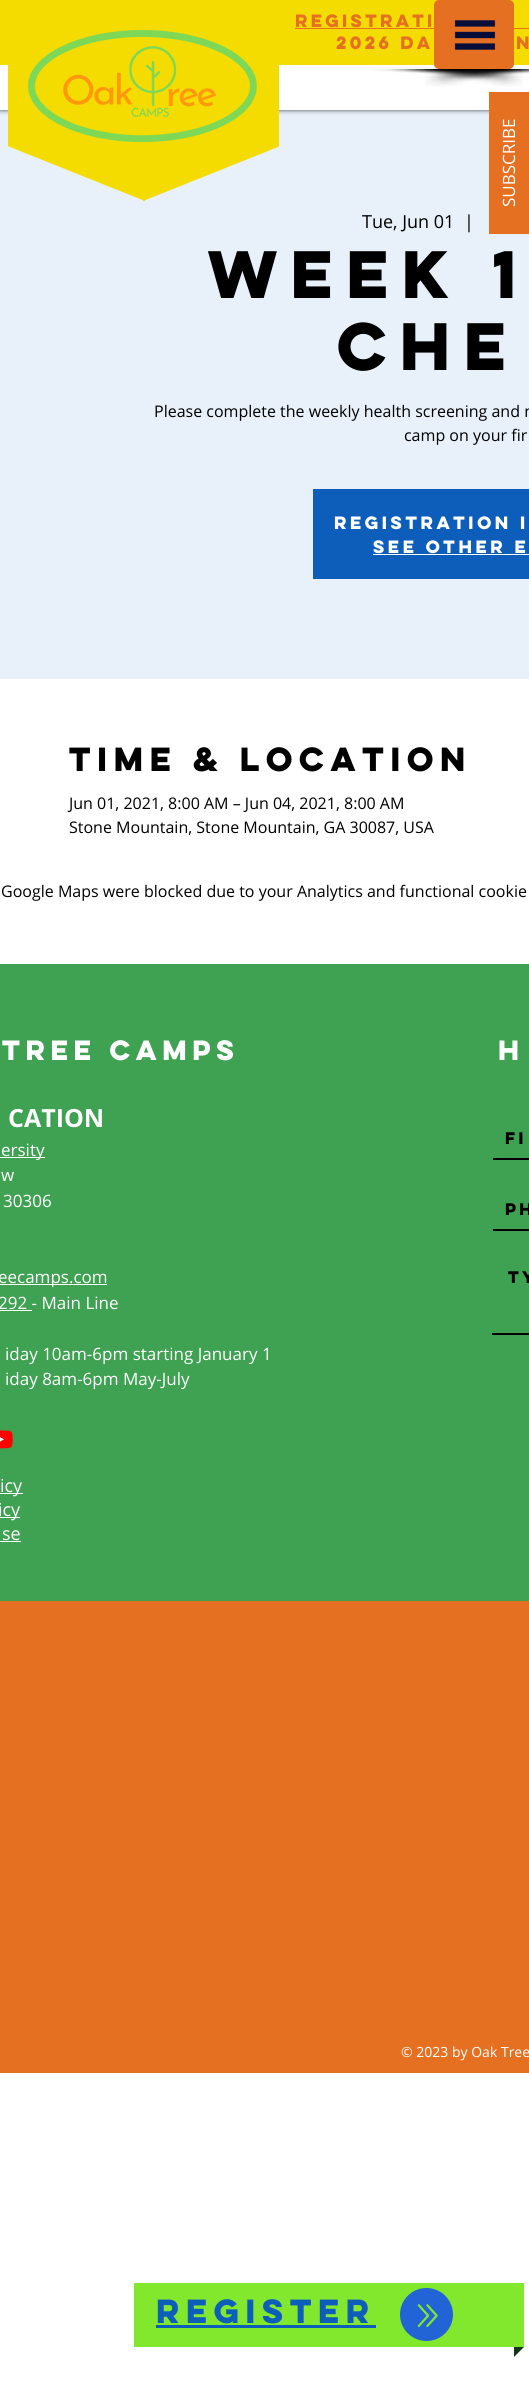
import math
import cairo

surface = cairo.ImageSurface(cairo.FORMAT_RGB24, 529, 2383)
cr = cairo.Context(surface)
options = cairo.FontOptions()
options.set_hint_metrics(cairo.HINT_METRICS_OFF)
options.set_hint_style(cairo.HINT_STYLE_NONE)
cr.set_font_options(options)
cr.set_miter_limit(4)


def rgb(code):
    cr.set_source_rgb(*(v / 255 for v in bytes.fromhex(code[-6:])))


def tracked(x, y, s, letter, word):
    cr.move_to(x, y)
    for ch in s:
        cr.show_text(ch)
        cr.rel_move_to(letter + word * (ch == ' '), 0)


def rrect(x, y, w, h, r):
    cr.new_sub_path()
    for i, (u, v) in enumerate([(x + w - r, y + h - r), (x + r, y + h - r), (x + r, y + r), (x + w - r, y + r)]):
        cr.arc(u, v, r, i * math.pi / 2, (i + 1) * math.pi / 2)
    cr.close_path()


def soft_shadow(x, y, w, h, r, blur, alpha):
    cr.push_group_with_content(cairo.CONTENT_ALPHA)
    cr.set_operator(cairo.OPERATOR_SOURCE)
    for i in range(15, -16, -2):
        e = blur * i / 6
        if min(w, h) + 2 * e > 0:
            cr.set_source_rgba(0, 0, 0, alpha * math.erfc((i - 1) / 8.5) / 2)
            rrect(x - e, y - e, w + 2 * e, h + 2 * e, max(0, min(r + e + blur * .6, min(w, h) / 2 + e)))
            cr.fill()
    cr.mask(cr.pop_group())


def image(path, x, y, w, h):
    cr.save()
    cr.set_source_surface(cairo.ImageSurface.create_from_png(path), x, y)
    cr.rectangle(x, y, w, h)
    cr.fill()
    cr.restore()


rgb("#ffffff")
cr.paint()
rgb("#e8f0f9")
cr.rectangle(0, 110, 529, 569)
cr.fill()
cr.save()
cr.rectangle(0, 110, 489, 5)
cr.clip()
rgb("#000000")
soft_shadow(0, 0, 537, 110, 0, 2.5, 0.7)
cr.restore()
rgb("#f5dc00")
cr.rectangle(0, 0, 529, 65)
cr.fill()
cr.save()
cr.rectangle(8, 0, 271, 202)
cr.clip()
cr.new_path()
cr.move_to(143, 201)
cr.line_to(143, 1)
cr.line_to(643, 1)
cr.close_path()
cr.fill()
cr.new_path()
cr.move_to(145, 1)
cr.line_to(145, 201)
cr.line_to(-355, 1)
cr.close_path()
cr.fill()
cr.restore()
image("img/1.png", 28, 29, 229, 114)
rgb("#e57022")
cr.rectangle(295, 28, 234, 1)
cr.fill()
rrect(434, 0, 80, 69, 5)
cr.fill()
image("img/2.png", 454, 20, 42, 30)
image("img/4.png", 425, 69, 104, 18)
image("img/3.png", 369, 69, 154, 18)
for x, y, w, h, color in [
    (489, 92, 40, 142, "#e57022"),
    (313, 489, 216, 90, "#0d5eba"),
    (373, 554, 156, 1, "#ffffff"),
    (0, 964, 529, 637, "#3fa152"),
    (0, 1157, 45, 1, "#ffffff"),
    (0, 1284, 107, 1, "#ffffff"),
    (0, 1310, 32, 1, "#ffffff"),
]:
    rgb(color)
    cr.rectangle(x, y, w, h)
    cr.fill()
image("img/5.png", 0, 1430, 13, 19)
for x, y, w, h, color in [
    (0, 1493, 23, 1, "#ffffff"),
    (0, 1517, 20, 1, "#ffffff"),
    (0, 1541, 21, 1, "#ffffff"),
    (493, 1158, 36, 2, "#000000"),
    (493, 1229, 36, 2, "#000000"),
    (492, 1333, 37, 2, "#000000"),
    (0, 1601, 529, 472, "#e57022"),
    (134, 2283, 390, 64, "#82e82e"),
    (156, 2325, 220, 3, "#0d5eba"),
]:
    rgb(color)
    cr.rectangle(x, y, w, h)
    cr.fill()
image("img/6.png", 400, 2288, 53, 53)
rgb("#15361b")
cr.new_path()
cr.move_to(514, 2347)
cr.line_to(524, 2347)
cr.line_to(514, 2357)
cr.close_path()
cr.fill()
cr.select_font_face("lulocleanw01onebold", cairo.FONT_SLANT_NORMAL, cairo.FONT_WEIGHT_BOLD)
cr.set_font_size(16)
rgb("#e57022")
for x, y, s in [
    (295, 27, "Registrati"),
    (336, 49, "2026 Da"),
    (516, 49, "N"),
]:
    tracked(x, y, s, -0.25, 0)
cr.select_font_face("Open Sans")
cr.set_font_size(17)
rgb("#ffffff")
cr.save()
cr.translate(515, 207)
cr.rotate(-90 * math.pi / 180)
cr.move_to(0, 0)
cr.show_text("SUBSCRIBE")
cr.restore()
cr.set_font_size(18)
rgb("#000000")
cr.move_to(362, 228)
cr.show_text("Tue, Jun 01")
cr.move_to(464, 228)
cr.show_text("|")
cr.select_font_face("lulocleanw01onebold", cairo.FONT_SLANT_NORMAL, cairo.FONT_WEIGHT_BOLD)
cr.set_font_size(60)
cr.move_to(208, 298)
cr.show_text("Week 1")
cr.move_to(337, 370)
cr.show_text("Che")
cr.select_font_face("Open Sans")
cr.set_font_size(16)
cr.move_to(154, 417)
cr.show_text("Please complete the weekly health screening and n")
cr.move_to(404, 441)
cr.show_text("camp on your fir")
cr.select_font_face("lulocleanw01onebold", cairo.FONT_SLANT_NORMAL, cairo.FONT_WEIGHT_BOLD)
rgb("#ffffff")
cr.move_to(334, 529)
cr.show_text("Registration i")
cr.move_to(373, 553)
cr.show_text("See other e")
cr.set_font_size(30)
rgb("#000000")
cr.move_to(69, 771)
cr.show_text("Time & Location")
cr.select_font_face("Open Sans")
cr.set_font_size(16)
for x, y, s in [
    (69, 809, "Jun 01, 2021, 8:00 AM – Jun 04, 2021, 8:00 AM"),
    (69, 833, "Stone Mountain, Stone Mountain, GA 30087, USA"),
    (1, 897, "Google Maps were blocked due to your Analytics and functional cookie"),
]:
    cr.move_to(x, y)
    cr.show_text(s)
cr.select_font_face("lulocleanw01onebold", cairo.FONT_SLANT_NORMAL, cairo.FONT_WEIGHT_BOLD)
cr.set_font_size(25)
rgb("#ffffff")
cr.move_to(2, 1060)
cr.show_text("tree camps")
cr.select_font_face("Open Sans", cairo.FONT_SLANT_NORMAL, cairo.FONT_WEIGHT_BOLD)
cr.move_to(8, 1127)
cr.show_text("CATION")
cr.select_font_face("Open Sans")
cr.set_font_size(17)
for x, y, s in [
    (1, 1156, "ersity"),
    (1, 1181, "w"),
    (3, 1207, "30306"),
    (-2, 1283, "eecamps.com"),
    (-2, 1309, "292 - Main Line"),
    (5, 1360, "iday 10am-6pm starting January 1"),
    (5, 1385, "iday 8am-6pm May-July"),
]:
    cr.move_to(x, y)
    cr.show_text(s)
cr.set_font_size(18)
for x, y, s in [
    (0, 1492, "icy"),
    (-2, 1516, "icy"),
    (2, 1540, "se"),
]:
    cr.move_to(x, y)
    cr.show_text(s)
cr.select_font_face("lulocleanw01onebold", cairo.FONT_SLANT_NORMAL, cairo.FONT_WEIGHT_BOLD)
cr.set_font_size(25)
cr.move_to(498, 1060)
cr.show_text("H")
cr.set_font_size(15)
rgb("#000000")
for x, y, s in [
    (505, 1144, "Fi"),
    (505, 1215, "Ph"),
    (508, 1283, "Ty"),
]:
    cr.move_to(x, y)
    cr.show_text(s)
cr.select_font_face("Open Sans")
cr.set_font_size(14)
rgb("#ffffff")
cr.move_to(401, 2057)
cr.show_text("© 2023 by Oak Tree")
cr.select_font_face("lulocleanw01onebold", cairo.FONT_SLANT_NORMAL, cairo.FONT_WEIGHT_BOLD)
cr.set_font_size(30)
rgb("#0d5eba")
cr.move_to(156, 2323)
cr.show_text("Register")
surface.write_to_png("page.png")
